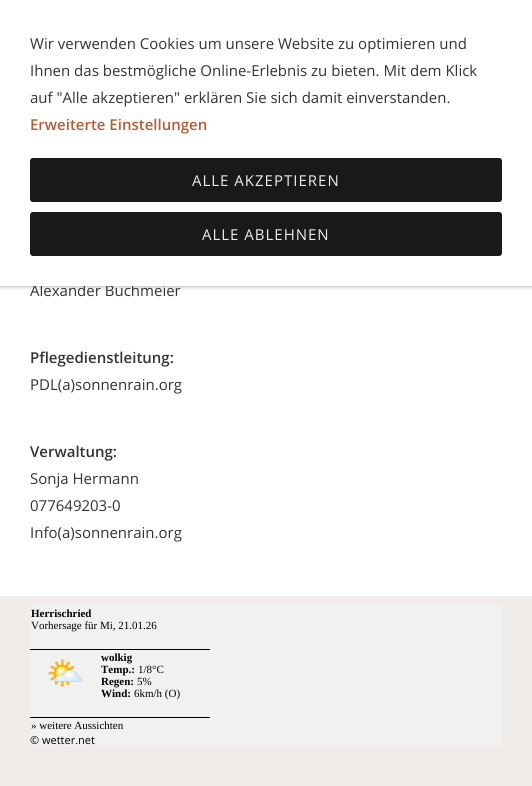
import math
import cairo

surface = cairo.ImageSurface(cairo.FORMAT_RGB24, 532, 786)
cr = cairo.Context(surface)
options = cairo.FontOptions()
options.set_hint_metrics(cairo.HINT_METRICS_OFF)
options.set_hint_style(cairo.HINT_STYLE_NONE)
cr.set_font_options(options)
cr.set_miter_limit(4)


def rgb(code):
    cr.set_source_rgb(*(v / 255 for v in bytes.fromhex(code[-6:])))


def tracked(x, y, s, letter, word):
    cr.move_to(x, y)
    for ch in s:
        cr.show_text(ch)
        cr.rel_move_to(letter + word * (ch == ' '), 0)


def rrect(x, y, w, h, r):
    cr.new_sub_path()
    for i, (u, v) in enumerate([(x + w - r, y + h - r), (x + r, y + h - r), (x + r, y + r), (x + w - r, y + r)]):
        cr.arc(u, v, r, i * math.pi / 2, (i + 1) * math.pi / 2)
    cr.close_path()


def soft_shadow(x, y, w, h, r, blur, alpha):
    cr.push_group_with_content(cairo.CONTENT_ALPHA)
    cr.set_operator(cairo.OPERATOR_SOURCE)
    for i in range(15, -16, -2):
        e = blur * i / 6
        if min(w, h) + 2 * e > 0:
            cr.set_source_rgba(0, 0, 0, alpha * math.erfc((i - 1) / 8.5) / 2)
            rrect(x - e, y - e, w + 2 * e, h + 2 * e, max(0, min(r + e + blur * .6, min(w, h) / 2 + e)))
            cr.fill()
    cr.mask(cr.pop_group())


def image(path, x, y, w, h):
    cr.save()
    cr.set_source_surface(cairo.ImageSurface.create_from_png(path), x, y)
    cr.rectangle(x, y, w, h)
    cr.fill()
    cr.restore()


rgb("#efecea")
cr.paint()
rgb("#ffffff")
cr.rectangle(0, 286, 532, 310)
cr.fill()
rgb("#000000")
soft_shadow(0, 0, 532, 286, 0, 2.5, 0.4)
rgb("#f1f1f1")
cr.rectangle(30, 606, 472, 141)
cr.fill()
rgb("#000000")
cr.rectangle(30, 649, 180, 1)
cr.fill()
image("img/1.png", 48, 659, 35, 28)
cr.rectangle(30, 717, 180, 1)
cr.fill()
cr.select_font_face("Open Sans")
cr.set_font_size(15)
rgb("#333333")
cr.move_to(30, 296)
cr.show_text("Alexander Buchmeier")
rgb("#ffffff")
cr.rectangle(0, 0, 532, 286)
cr.fill()
rgb("#191918")
rrect(30, 212, 472, 44, 3)
cr.fill()
rgb("#efecea")
tracked(202, 240, "ALLE ABLEHNEN", 1, 0)
rgb("#191918")
rrect(30, 158, 472, 44, 3)
cr.fill()
rgb("#efecea")
tracked(192, 186, "ALLE AKZEPTIEREN", 1, 0)
cr.select_font_face("Open Sans SemiBold")
rgb("#b25d35")
cr.move_to(30, 130)
cr.show_text("Erweiterte Einstellungen")
cr.select_font_face("Open Sans")
rgb("#333333")
for x, y, s in [
    (30, 103, "auf \"Alle akzeptieren\" erklären Sie sich damit einverstanden."),
    (30, 76, "Ihnen das bestmögliche Online-Erlebnis zu bieten. Mit dem Klick"),
    (30, 49, "Wir verwenden Cookies um unsere Website zu optimieren und"),
]:
    cr.move_to(x, y)
    cr.show_text(s)
cr.select_font_face("Open Sans SemiBold")
cr.move_to(30, 363)
cr.show_text("Pflegedienstleitung:")
cr.select_font_face("Open Sans")
cr.move_to(30, 390)
cr.show_text("PDL(a)sonnenrain.org")
cr.select_font_face("Open Sans SemiBold")
cr.move_to(30, 457)
cr.show_text("Verwaltung:")
cr.select_font_face("Open Sans")
for x, y, s in [
    (30, 484, "Sonja Hermann"),
    (30, 511, "077649203-0"),
    (30, 538, "Info(a)sonnenrain.org"),
]:
    cr.move_to(x, y)
    cr.show_text(s)
cr.select_font_face("Liberation Serif", cairo.FONT_SLANT_NORMAL, cairo.FONT_WEIGHT_BOLD)
cr.set_font_size(11)
rgb("#000000")
cr.move_to(31, 617)
cr.show_text("Herrischried")
cr.select_font_face("Liberation Serif")
cr.move_to(31, 629)
cr.show_text("Vorhersage für Mi, 21.01.26")
cr.select_font_face("Liberation Serif", cairo.FONT_SLANT_NORMAL, cairo.FONT_WEIGHT_BOLD)
cr.move_to(101, 661)
cr.show_text("wolkig")
cr.move_to(101, 673)
cr.show_text("Temp.:")
cr.select_font_face("Liberation Serif")
cr.move_to(138, 673)
cr.show_text("1/8°C")
cr.select_font_face("Liberation Serif", cairo.FONT_SLANT_NORMAL, cairo.FONT_WEIGHT_BOLD)
cr.move_to(101, 685)
cr.show_text("Regen:")
cr.select_font_face("Liberation Serif")
cr.move_to(137, 685)
cr.show_text("5%")
cr.select_font_face("Liberation Serif", cairo.FONT_SLANT_NORMAL, cairo.FONT_WEIGHT_BOLD)
cr.move_to(101, 697)
cr.show_text("Wind:")
cr.select_font_face("Liberation Serif")
cr.move_to(134, 697)
cr.show_text("6km/h (O)")
cr.move_to(31, 729)
cr.show_text("» weitere Aussichten")
cr.select_font_face("Open Sans")
cr.move_to(30, 744)
cr.show_text("© wetter.net")
surface.write_to_png("page.png")
